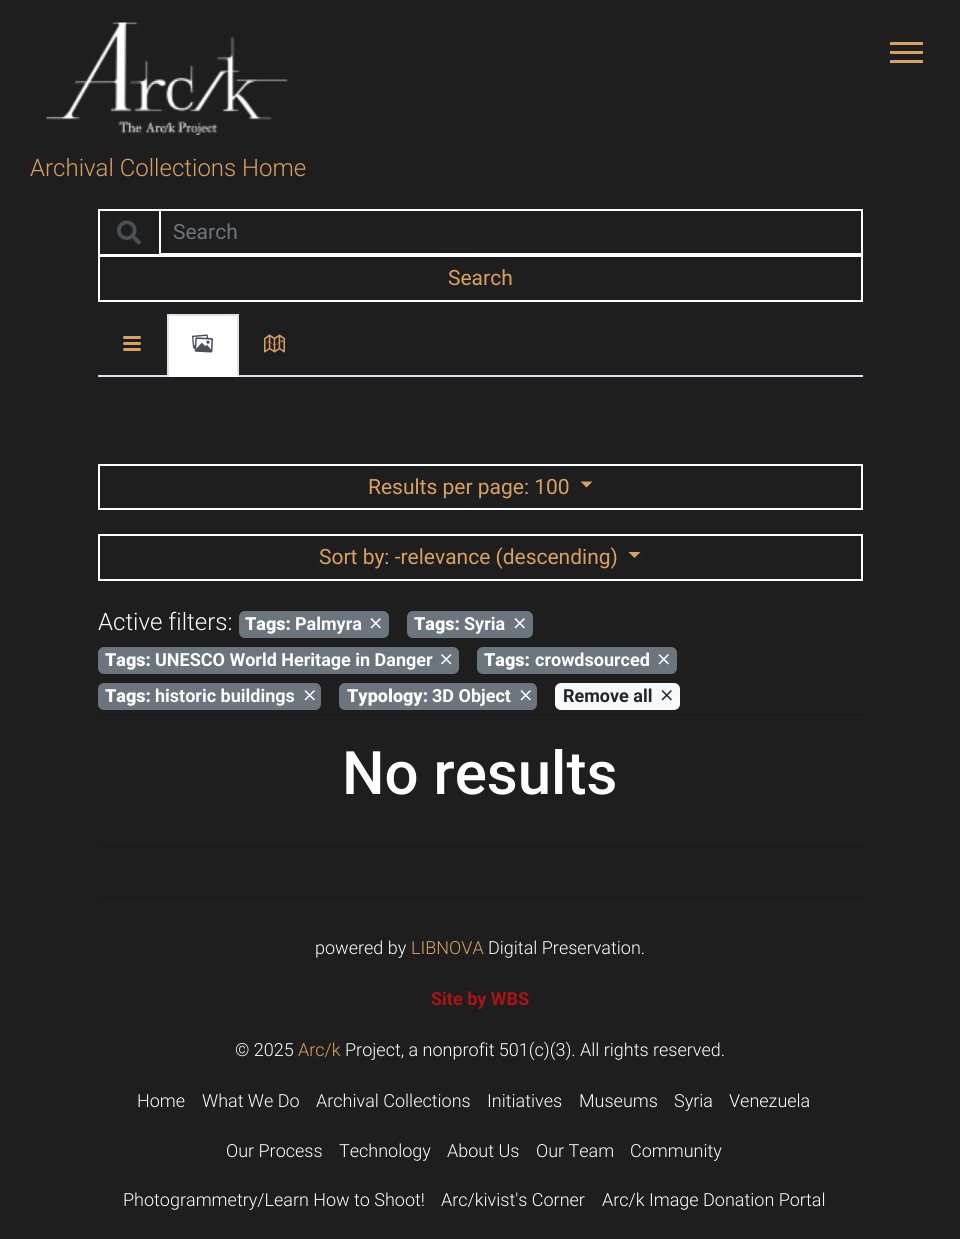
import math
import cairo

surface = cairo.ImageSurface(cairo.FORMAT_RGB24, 960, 1239)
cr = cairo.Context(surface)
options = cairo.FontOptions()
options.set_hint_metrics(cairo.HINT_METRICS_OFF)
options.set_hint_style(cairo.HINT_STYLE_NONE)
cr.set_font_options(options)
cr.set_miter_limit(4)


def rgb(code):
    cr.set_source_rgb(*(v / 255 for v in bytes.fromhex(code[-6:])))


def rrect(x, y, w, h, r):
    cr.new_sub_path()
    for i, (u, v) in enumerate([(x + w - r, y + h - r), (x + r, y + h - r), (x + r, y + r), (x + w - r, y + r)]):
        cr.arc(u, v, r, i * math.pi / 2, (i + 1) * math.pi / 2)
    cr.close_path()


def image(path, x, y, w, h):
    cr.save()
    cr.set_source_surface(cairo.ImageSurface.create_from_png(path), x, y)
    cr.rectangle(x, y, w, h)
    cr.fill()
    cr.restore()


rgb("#1e1e1e")
cr.paint()
image("img/1.png", 46, 22, 243, 113)
for x, y, w, h, color in [
    (890, 42, 33, 3, "#d9a160"),
    (890, 51, 33, 3, "#d9a160"),
    (890, 60, 33, 3, "#d9a160"),
    (98, 209, 61, 2, "#ffffff"),
    (98, 254, 61, 1, "#ffffff"),
    (98, 209, 2, 46, "#ffffff"),
]:
    rgb(color)
    cr.rectangle(x, y, w, h)
    cr.fill()
image("img/2.png", 117, 220, 24, 25)
cr.rectangle(160, 210, 702, 44)
cr.stroke()
cr.rectangle(99, 256, 763, 45)
cr.stroke()
rgb("#dee2e6")
cr.rectangle(98, 375, 765, 2)
cr.fill()
image("img/3.png", 123, 336, 18, 15)
for x, y, w, h, color in [
    (169, 316, 68, 59, "#ffffff"),
    (167, 314, 72, 2, "#dee2e6"),
    (237, 314, 2, 63, "#dee2e6"),
    (167, 375, 72, 2, "#ffffff"),
    (167, 314, 2, 63, "#dee2e6"),
]:
    rgb(color)
    cr.rectangle(x, y, w, h)
    cr.fill()
image("img/4.png", 192, 334, 21, 19)
image("img/5.png", 264, 334, 21, 19)
cr.rectangle(99, 465, 763, 44)
rgb("#ffffff")
cr.stroke()
rgb("#d9a160")
cr.new_path()
cr.move_to(580.5, 481.5)
cr.line_to(592.5, 481.5)
cr.line_to(586.5, 487.5)
cr.close_path()
cr.fill()
cr.rectangle(99, 535, 763, 45)
rgb("#ffffff")
cr.stroke()
rgb("#d9a160")
cr.new_path()
cr.move_to(628.5, 552)
cr.line_to(640.5, 552)
cr.line_to(634.5, 558)
cr.close_path()
cr.fill()
rgb("#6c757d")
rrect(239, 611, 150, 27, 6)
cr.fill()
image("img/6.png", 370, 618, 11, 11)
rrect(407, 611, 126, 27, 6)
cr.fill()
image("img/6.png", 514, 618, 11, 11)
rrect(98, 647, 361, 27, 6)
cr.fill()
image("img/7.png", 441, 654, 11, 11)
rrect(477, 647, 200, 27, 6)
cr.fill()
image("img/6.png", 658, 654, 11, 11)
rrect(98, 683, 223, 27, 6)
cr.fill()
image("img/6.png", 304, 690, 11, 11)
rrect(339, 683, 198, 27, 6)
cr.fill()
image("img/6.png", 520, 690, 11, 11)
rgb("#f8f9fa")
rrect(555, 683, 125, 27, 6)
cr.fill()
image("img/8.png", 661, 690, 11, 11)
for x, y, w, h, color in [
    (98, 713, 765, 2, "#1b1b1b"),
    (98, 846, 765, 2, "#1b1b1b"),
    (98, 896, 765, 2, "#1b1b1b"),
]:
    rgb(color)
    cr.rectangle(x, y, w, h)
    cr.fill()
cr.select_font_face("Roboto Light")
cr.set_font_size(24)
rgb("#d9a160")
cr.move_to(30, 176)
cr.show_text("Archival Collections Home")
cr.select_font_face("Roboto")
cr.set_font_size(21)
rgb("#6c757d")
cr.move_to(173, 239)
cr.show_text("Search")
rgb("#d9a160")
for x, y, s in [
    (448, 285, "Search"),
    (368, 494, "Results per page: 100"),
    (319, 564, "Sort by: -relevance (descending)"),
]:
    cr.move_to(x, y)
    cr.show_text(s)
cr.select_font_face("Roboto Light")
cr.set_font_size(24)
rgb("#ffffff")
cr.move_to(98, 630)
cr.show_text("Active filters:")
cr.select_font_face("Roboto Black")
cr.set_font_size(18)
cr.move_to(245, 630)
cr.show_text("Tags:")
cr.select_font_face("Roboto", cairo.FONT_SLANT_NORMAL, cairo.FONT_WEIGHT_BOLD)
cr.move_to(295, 630)
cr.show_text("Palmyra")
cr.select_font_face("Roboto Black")
cr.move_to(414, 630)
cr.show_text("Tags:")
cr.select_font_face("Roboto", cairo.FONT_SLANT_NORMAL, cairo.FONT_WEIGHT_BOLD)
cr.move_to(464, 630)
cr.show_text("Syria")
cr.select_font_face("Roboto Black")
cr.move_to(105, 666)
cr.show_text("Tags:")
cr.select_font_face("Roboto", cairo.FONT_SLANT_NORMAL, cairo.FONT_WEIGHT_BOLD)
cr.move_to(155, 666)
cr.show_text("UNESCO World Heritage in Danger")
cr.select_font_face("Roboto Black")
cr.move_to(484, 666)
cr.show_text("Tags:")
cr.select_font_face("Roboto", cairo.FONT_SLANT_NORMAL, cairo.FONT_WEIGHT_BOLD)
cr.move_to(535, 666)
cr.show_text("crowdsourced")
cr.select_font_face("Roboto Black")
cr.move_to(105, 702)
cr.show_text("Tags:")
cr.select_font_face("Roboto", cairo.FONT_SLANT_NORMAL, cairo.FONT_WEIGHT_BOLD)
cr.move_to(155, 702)
cr.show_text("historic buildings")
cr.select_font_face("Roboto Black")
cr.move_to(347, 702)
cr.show_text("Typology:")
cr.select_font_face("Roboto", cairo.FONT_SLANT_NORMAL, cairo.FONT_WEIGHT_BOLD)
cr.move_to(432, 702)
cr.show_text("3D Object")
rgb("#212529")
cr.move_to(563, 702)
cr.show_text("Remove all")
cr.select_font_face("Roboto Medium")
cr.set_font_size(60)
rgb("#ffffff")
cr.move_to(342, 794)
cr.show_text("No results")
cr.select_font_face("Roboto Light")
cr.set_font_size(18)
cr.move_to(315, 954)
cr.show_text("powered by")
rgb("#d9a160")
cr.move_to(411, 954)
cr.show_text("LIBNOVA")
rgb("#ffffff")
cr.move_to(488, 954)
cr.show_text("Digital Preservation.")
cr.select_font_face("Roboto", cairo.FONT_SLANT_NORMAL, cairo.FONT_WEIGHT_BOLD)
rgb("#ad1313")
cr.move_to(431, 1005)
cr.show_text("Site by WBS")
cr.select_font_face("Roboto Light")
rgb("#ffffff")
cr.move_to(235, 1056)
cr.show_text("© 2025")
rgb("#d9a160")
cr.move_to(298, 1056)
cr.show_text("Arc/k")
rgb("#ffffff")
for x, y, s in [
    (345, 1056, "Project, a nonprofit 501(c)(3). All rights reserved."),
    (137, 1107, "Home"),
    (202, 1107, "What We Do"),
    (316, 1107, "Archival Collections"),
    (487, 1107, "Initiatives"),
    (579, 1107, "Museums"),
    (674, 1107, "Syria"),
    (729, 1107, "Venezuela"),
    (226, 1157, "Our Process"),
    (339, 1157, "Technology"),
    (447, 1157, "About Us"),
    (536, 1157, "Our Team"),
    (630, 1157, "Community"),
    (123, 1206, "Photogrammetry/Learn How to Shoot!"),
    (441, 1206, "Arc/kivist's Corner"),
    (602, 1206, "Arc/k Image Donation Portal"),
]:
    cr.move_to(x, y)
    cr.show_text(s)
surface.write_to_png("page.png")
